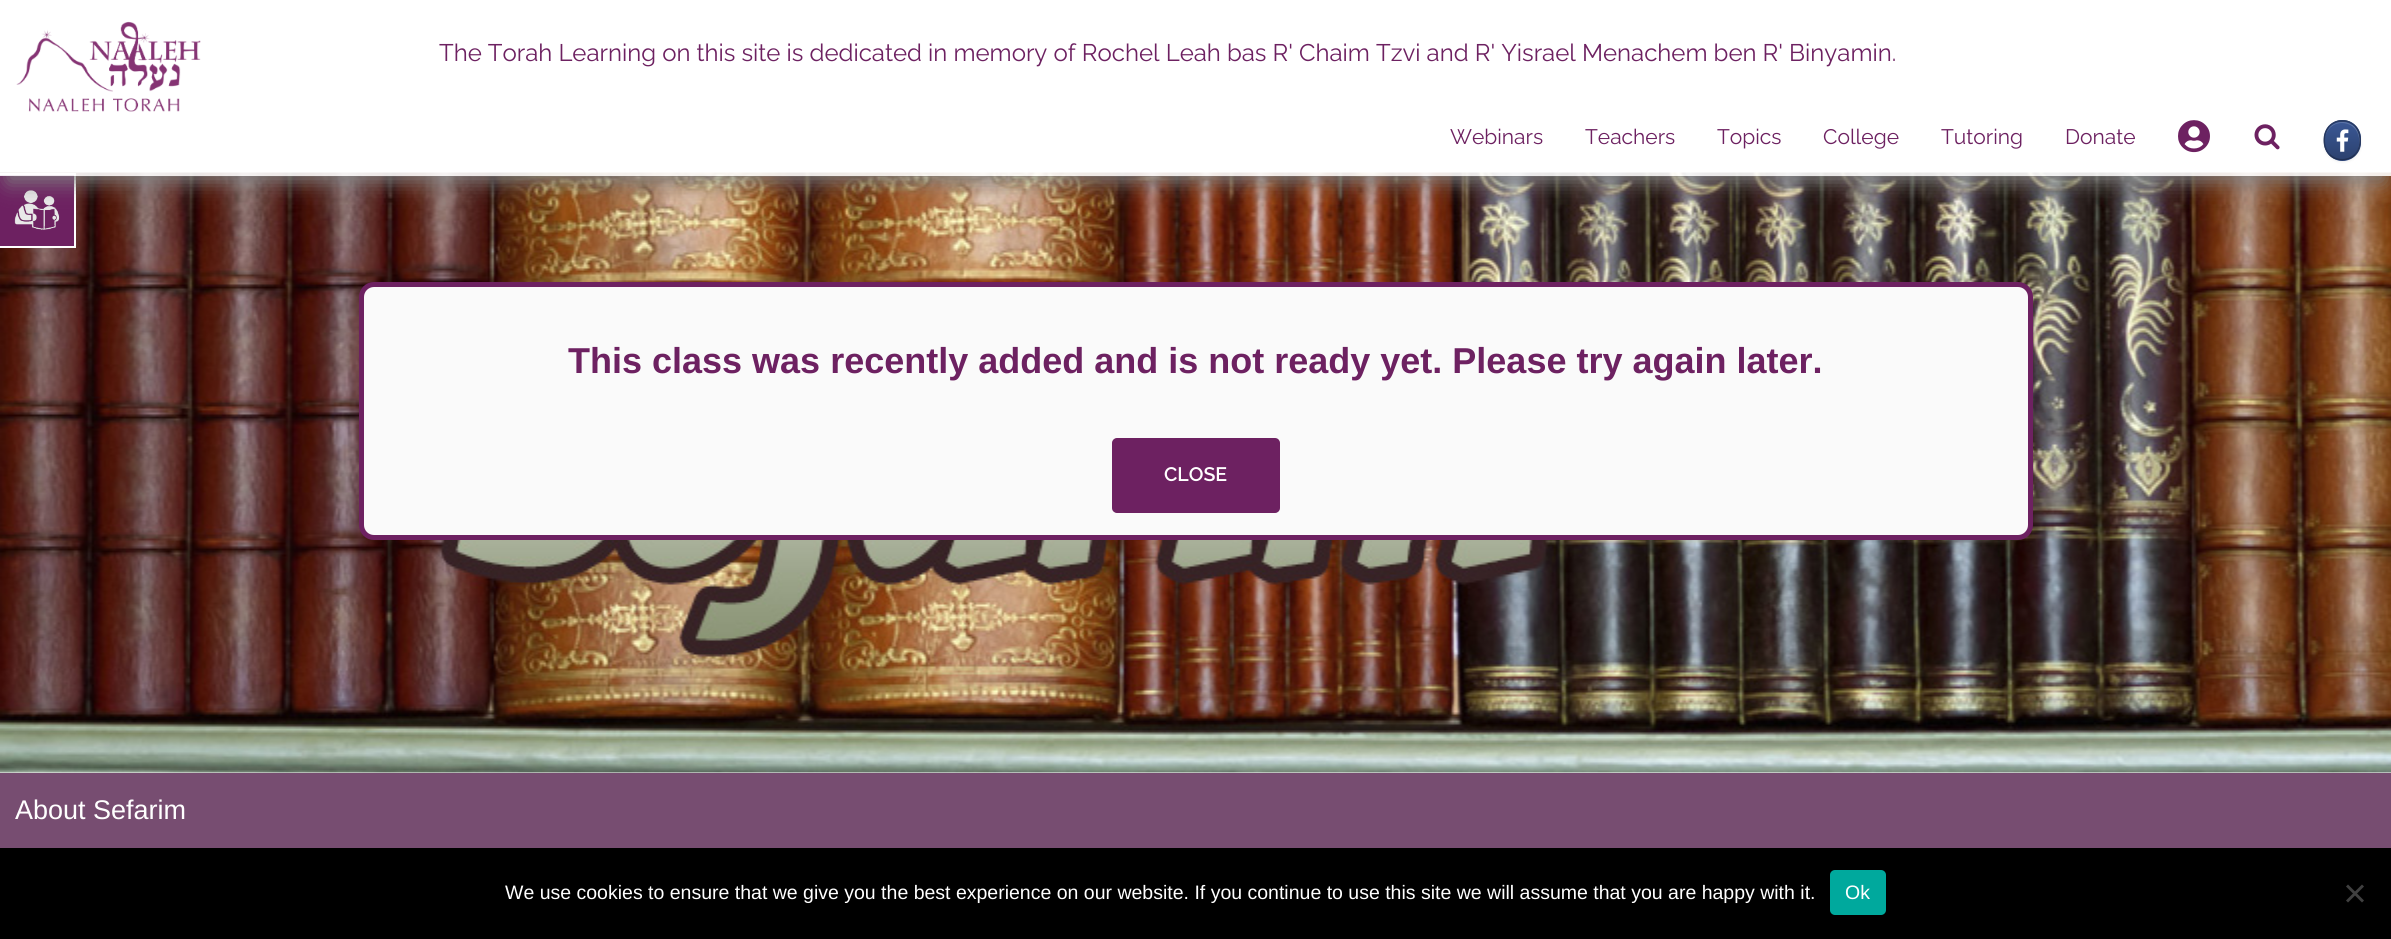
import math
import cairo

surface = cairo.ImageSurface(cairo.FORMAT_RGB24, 2391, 939)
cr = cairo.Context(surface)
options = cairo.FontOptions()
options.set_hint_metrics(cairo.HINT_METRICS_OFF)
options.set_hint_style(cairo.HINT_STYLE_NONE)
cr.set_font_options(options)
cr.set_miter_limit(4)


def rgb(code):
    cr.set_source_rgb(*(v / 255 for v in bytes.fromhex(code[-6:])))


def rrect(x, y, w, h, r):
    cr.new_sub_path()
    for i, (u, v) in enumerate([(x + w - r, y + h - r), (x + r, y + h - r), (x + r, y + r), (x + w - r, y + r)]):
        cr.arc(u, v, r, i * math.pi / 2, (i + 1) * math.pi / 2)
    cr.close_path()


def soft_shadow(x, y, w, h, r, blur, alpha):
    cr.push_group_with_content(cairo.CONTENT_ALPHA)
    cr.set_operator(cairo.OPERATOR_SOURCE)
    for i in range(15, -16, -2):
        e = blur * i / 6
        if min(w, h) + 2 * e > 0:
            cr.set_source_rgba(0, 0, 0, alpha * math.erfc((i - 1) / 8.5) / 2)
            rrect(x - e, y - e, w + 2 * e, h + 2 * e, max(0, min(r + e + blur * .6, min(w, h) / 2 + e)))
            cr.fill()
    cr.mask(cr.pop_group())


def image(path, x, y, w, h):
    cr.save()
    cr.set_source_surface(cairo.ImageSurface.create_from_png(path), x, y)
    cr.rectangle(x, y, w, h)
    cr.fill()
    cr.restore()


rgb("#ffffff")
cr.paint()
image("img/6.png", 0, 172, 2391, 601)
for x, y, w, h, color in [
    (0, 175, 74, 71, "#6d2161"),
    (0, 173, 75, 2, "#ffffff"),
    (74, 173, 2, 75, "#ffffff"),
]:
    rgb(color)
    cr.rectangle(x, y, w, h)
    cr.fill()
image("img/5.png", 14, 190, 46, 40)
cr.save()
cr.set_fill_rule(cairo.FILL_RULE_EVEN_ODD)
cr.new_path()
cr.move_to(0, 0)
cr.line_to(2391, 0)
cr.line_to(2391, 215)
cr.line_to(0, 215)
cr.close_path()
cr.move_to(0, 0)
cr.line_to(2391, 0)
cr.line_to(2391, 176)
cr.line_to(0, 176)
cr.close_path()
cr.clip()
rgb("#808080")
soft_shadow(8, 21, 2376, 161, 0, 10.5, 1)
cr.restore()
cr.set_source_rgba(1, 1, 1, 0.9)
cr.rectangle(0, 172, 2391, 4)
cr.fill()
image("img/1.png", 16, 21, 185, 91)
image("img/2.png", 2178, 120, 32, 33)
image("img/3.png", 2254, 124, 26, 26)
rgb("#000000")
soft_shadow(2324, 122, 37, 40, 18.5, 1.5, 0.07)
cr.save()
rrect(2324, 120, 37, 41, 18.5)
cr.clip()
gradient = cairo.LinearGradient(2325, 122, 2325, 84)
gradient.add_color_stop_rgba(0, 0.173, 0.259, 0.439, 1)
gradient.add_color_stop_rgba(1, 0.227, 0.341, 0.584, 1)
cr.set_source(gradient)
cr.rectangle(2334, 120, 17, 2)
cr.fill()
gradient = cairo.LinearGradient(2325, 159, 2325, 122)
gradient.add_color_stop_rgba(0, 0.173, 0.259, 0.439, 1)
gradient.add_color_stop_rgba(1, 0.227, 0.341, 0.584, 1)
cr.set_source(gradient)
cr.rectangle(2324, 122, 37, 37)
cr.fill()
gradient = cairo.LinearGradient(2325, 197, 2325, 159)
gradient.add_color_stop_rgba(0, 0.173, 0.259, 0.439, 1)
gradient.add_color_stop_rgba(1, 0.227, 0.341, 0.584, 1)
cr.set_source(gradient)
cr.rectangle(2334, 159, 17, 2)
cr.fill()
cr.restore()
cr.set_source_rgba(1, 1, 1, 0.2)
cr.new_path()
cr.move_to(2342, 123)
cr.curve_to(2358, 123, 2363, 141, 2356.5, 152)
cr.curve_to(2359, 148.5, 2360, 144.5, 2360, 140.5)
cr.curve_to(2360, 117, 2327.5, 116, 2325, 137.5)
cr.curve_to(2326.5, 130, 2332, 123, 2342, 123)
cr.close_path()
cr.fill()
cr.new_path()
cr.move_to(2329.5, 126)
cr.curve_to(2336.5, 119, 2348, 119, 2355, 126)
rgb("#273b65")
cr.set_line_width(1.5)
cr.stroke()
cr.new_path()
cr.move_to(2355, 126)
cr.curve_to(2362, 133.5, 2362, 147, 2355, 154.5)
rgb("#25375e")
cr.stroke()
cr.new_path()
cr.move_to(2355, 154.5)
cr.curve_to(2348, 161.5, 2336.5, 161.5, 2329.5, 154.5)
rgb("#203053")
cr.stroke()
cr.new_path()
cr.move_to(2329.5, 154.5)
cr.curve_to(2322.5, 147, 2322.5, 133.5, 2329.5, 126)
rgb("#25375e")
cr.stroke()
image("img/4.png", 2336, 129, 13, 23)
rgb("#ffffff")
cr.rectangle(0, 246, 75, 2)
cr.fill()
rgb("#fafafa")
rrect(361.5, 284.5, 1669, 253, 12.5)
cr.fill_preserve()
rgb("#6d2161")
cr.set_line_width(5)
cr.stroke()
rrect(1113, 439, 166, 73, 4)
cr.fill_preserve()
cr.set_line_width(2)
cr.stroke()
rgb("#774d71")
cr.rectangle(0, 773, 2391, 75)
cr.fill()
rgb("#000000")
cr.rectangle(0, 848, 2391, 91)
cr.fill()
rgb("#00a99d")
rrect(1830, 870, 56, 45, 5)
cr.fill()
rgb("#404040")
cr.new_path()
cr.move_to(2362, 884.5)
cr.line_to(2364, 886.5)
cr.line_to(2348, 902.5)
cr.line_to(2346, 900.5)
cr.close_path()
cr.fill()
cr.new_path()
cr.move_to(2346, 886.5)
cr.line_to(2348, 884.5)
cr.line_to(2364, 900.5)
cr.line_to(2362, 902.5)
cr.close_path()
cr.fill()
cr.select_font_face("Raleway")
cr.set_font_size(24)
rgb("#6d2161")
cr.move_to(439, 61)
cr.show_text("The Torah Learning on this site is dedicated in memory of Rochel Leah bas R' Chaim Tzvi and R' Yisrael Menachem ben R' Binyamin.")
cr.set_font_size(21)
for x, y, s in [
    (1450, 144, "Webinars"),
    (1585, 144, "Teachers"),
    (1717, 144, "Topics"),
    (1823, 144, "College"),
    (1941, 144, "Tutoring"),
    (2065, 144, "Donate"),
]:
    cr.move_to(x, y)
    cr.show_text(s)
cr.select_font_face("Liberation Sans", cairo.FONT_SLANT_NORMAL, cairo.FONT_WEIGHT_BOLD)
cr.set_font_size(36)
cr.move_to(568, 373)
cr.show_text("This class was recently added and is not ready yet. Please try again later.")
cr.select_font_face("Raleway SemiBold")
cr.set_font_size(19.5)
rgb("#ffffff")
cr.move_to(1164, 481)
cr.show_text("CLOSE")
cr.select_font_face("Liberation Sans")
cr.set_font_size(27)
cr.move_to(15, 819)
cr.show_text("About Sefarim")
cr.set_font_size(19.5)
cr.move_to(505, 899)
cr.show_text("We use cookies to ensure that we give you the best experience on our website. If you continue to use this site we will assume that you are happy with it.")
cr.move_to(1845, 899)
cr.show_text("Ok")
surface.write_to_png("page.png")
